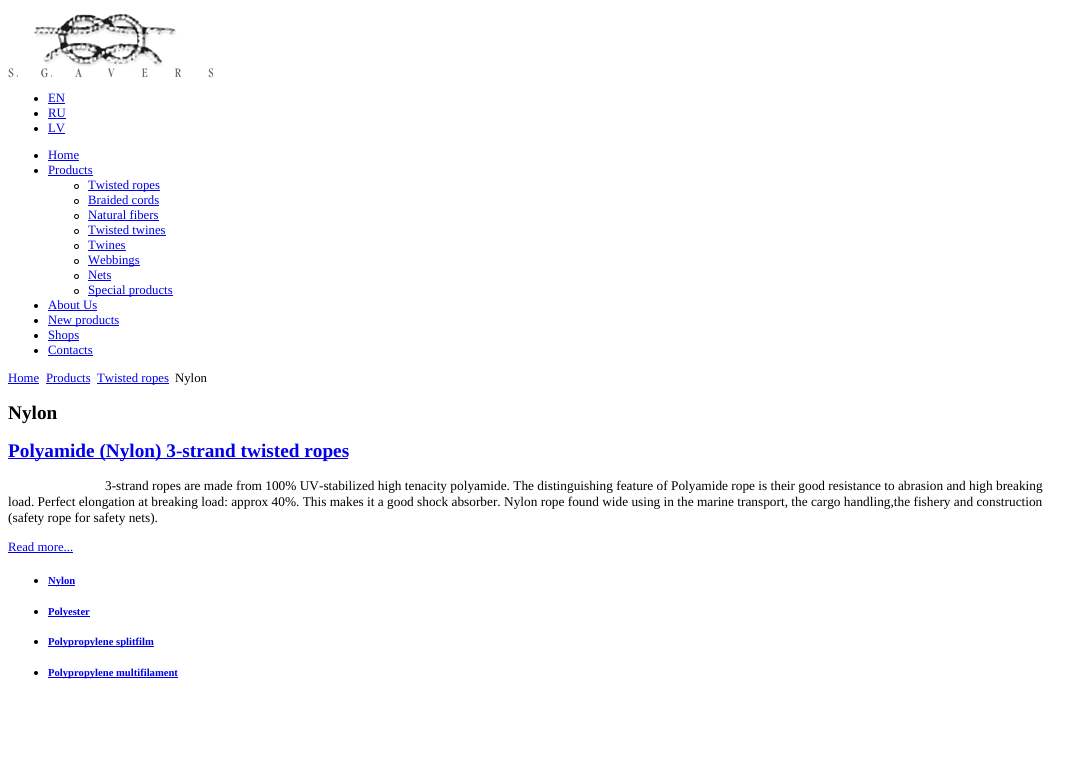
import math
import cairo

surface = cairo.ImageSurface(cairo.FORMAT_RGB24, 1066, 777)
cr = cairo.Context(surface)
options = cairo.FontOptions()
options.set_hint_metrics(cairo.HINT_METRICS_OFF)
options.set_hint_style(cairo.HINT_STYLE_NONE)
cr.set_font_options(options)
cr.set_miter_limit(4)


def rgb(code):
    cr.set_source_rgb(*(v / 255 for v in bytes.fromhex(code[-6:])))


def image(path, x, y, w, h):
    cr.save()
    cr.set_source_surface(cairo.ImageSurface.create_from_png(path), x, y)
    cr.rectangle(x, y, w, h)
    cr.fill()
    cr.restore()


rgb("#ffffff")
cr.paint()
image("img/1.png", 8, 13, 205, 65)
rgb("#000000")
cr.arc(36, 99, 2, 0, 2 * math.pi)
cr.fill()
rgb("#0000ee")
cr.rectangle(48, 103, 17, 1)
cr.fill()
rgb("#000000")
cr.arc(36, 114, 2, 0, 2 * math.pi)
cr.fill()
rgb("#0000ee")
cr.rectangle(48, 118, 18, 1)
cr.fill()
rgb("#000000")
cr.arc(36, 129, 2, 0, 2 * math.pi)
cr.fill()
rgb("#0000ee")
cr.rectangle(48, 133, 17, 1)
cr.fill()
rgb("#000000")
cr.arc(36, 156, 2, 0, 2 * math.pi)
cr.fill()
rgb("#0000ee")
cr.rectangle(48, 160, 31, 1)
cr.fill()
rgb("#000000")
cr.arc(36, 171, 2, 0, 2 * math.pi)
cr.fill()
rgb("#0000ee")
cr.rectangle(48, 175, 45, 1)
cr.fill()
cr.arc(76.5, 186.5, 2, 0, 2 * math.pi)
rgb("#000000")
cr.set_line_width(1)
cr.stroke()
rgb("#0000ee")
cr.rectangle(88, 190, 72, 1)
cr.fill()
cr.arc(76.5, 201.5, 2, 0, 2 * math.pi)
rgb("#000000")
cr.stroke()
rgb("#0000ee")
cr.rectangle(88, 205, 71, 1)
cr.fill()
cr.arc(76.5, 216.5, 2, 0, 2 * math.pi)
rgb("#000000")
cr.stroke()
rgb("#0000ee")
cr.rectangle(88, 220, 71, 1)
cr.fill()
cr.arc(76.5, 231.5, 2, 0, 2 * math.pi)
rgb("#000000")
cr.stroke()
rgb("#0000ee")
cr.rectangle(88, 235, 78, 1)
cr.fill()
cr.arc(76.5, 246.5, 2, 0, 2 * math.pi)
rgb("#000000")
cr.stroke()
rgb("#0000ee")
cr.rectangle(88, 250, 38, 1)
cr.fill()
cr.arc(76.5, 261.5, 2, 0, 2 * math.pi)
rgb("#000000")
cr.stroke()
rgb("#0000ee")
cr.rectangle(88, 265, 52, 1)
cr.fill()
cr.arc(76.5, 276.5, 2, 0, 2 * math.pi)
rgb("#000000")
cr.stroke()
rgb("#0000ee")
cr.rectangle(88, 280, 23, 1)
cr.fill()
cr.arc(76.5, 291.5, 2, 0, 2 * math.pi)
rgb("#000000")
cr.stroke()
rgb("#0000ee")
cr.rectangle(88, 295, 85, 1)
cr.fill()
rgb("#000000")
cr.arc(36, 306, 2, 0, 2 * math.pi)
cr.fill()
rgb("#0000ee")
cr.rectangle(48, 310, 49, 1)
cr.fill()
rgb("#000000")
cr.arc(36, 321, 2, 0, 2 * math.pi)
cr.fill()
rgb("#0000ee")
cr.rectangle(48, 325, 71, 1)
cr.fill()
rgb("#000000")
cr.arc(36, 336, 2, 0, 2 * math.pi)
cr.fill()
rgb("#0000ee")
cr.rectangle(48, 340, 31, 1)
cr.fill()
rgb("#000000")
cr.arc(36, 351, 2, 0, 2 * math.pi)
cr.fill()
for x, y, w, h, color in [
    (48, 355, 45, 1, "#0000ee"),
    (8, 383, 31, 1, "#0000ee"),
    (46, 383, 44, 1, "#0000ee"),
    (97, 383, 72, 1, "#0000ee"),
    (8, 458, 340, 1, "#0000ee"),
    (8, 552, 65, 1, "#0000ee"),
]:
    rgb(color)
    cr.rectangle(x, y, w, h)
    cr.fill()
rgb("#000000")
cr.arc(36, 581, 2, 0, 2 * math.pi)
cr.fill()
rgb("#0000ee")
cr.rectangle(48, 585, 27, 1)
cr.fill()
rgb("#000000")
cr.arc(36, 612, 2, 0, 2 * math.pi)
cr.fill()
rgb("#0000ee")
cr.rectangle(48, 616, 42, 1)
cr.fill()
rgb("#000000")
cr.arc(36, 642, 2, 0, 2 * math.pi)
cr.fill()
rgb("#0000ee")
cr.rectangle(48, 646, 106, 1)
cr.fill()
rgb("#000000")
cr.arc(36, 673, 2, 0, 2 * math.pi)
cr.fill()
rgb("#0000ee")
cr.rectangle(48, 677, 130, 1)
cr.fill()
cr.select_font_face("Liberation Serif")
cr.set_font_size(12.75)
for x, y, s in [
    (48, 102, "EN"),
    (48, 117, "RU"),
    (48, 132, "LV"),
    (48, 159, "Home"),
    (48, 174, "Products"),
    (88, 189, "Twisted ropes"),
    (88, 204, "Braided cords"),
    (88, 219, "Natural fibers"),
    (88, 234, "Twisted twines"),
    (88, 249, "Twines"),
    (88, 264, "Webbings"),
    (88, 279, "Nets"),
    (88, 294, "Special products"),
    (48, 309, "About Us"),
    (48, 324, "New products"),
    (48, 339, "Shops"),
    (48, 354, "Contacts"),
    (8, 382, "Home"),
    (46, 382, "Products"),
    (97, 382, "Twisted ropes"),
]:
    cr.move_to(x, y)
    cr.show_text(s)
rgb("#000000")
cr.move_to(175, 382)
cr.show_text("Nylon")
cr.select_font_face("Liberation Serif", cairo.FONT_SLANT_NORMAL, cairo.FONT_WEIGHT_BOLD)
cr.set_font_size(19.25)
cr.move_to(8, 419)
cr.show_text("Nylon")
rgb("#0000ee")
cr.move_to(8, 457)
cr.show_text("Polyamide (Nylon) 3-strand twisted ropes")
cr.select_font_face("Liberation Serif")
cr.set_font_size(13.33)
rgb("#000000")
for x, y, s in [
    (105, 490, "3-strand ropes are made from 100% UV-stabilized high tenacity polyamide. The distinguishing feature of Polyamide rope is their good resistance to abrasion and high breaking"),
    (8, 506, "load. Perfect elongation at breaking load: approx 40%. This makes it a good shock absorber. Nylon rope found wide using in the marine transport, the cargo handling,the fishery and construction"),
    (8, 522, "(safety rope for safety nets)."),
]:
    cr.move_to(x, y)
    cr.show_text(s)
cr.set_font_size(12.75)
rgb("#0000ee")
cr.move_to(8, 551)
cr.show_text("Read more...")
cr.select_font_face("Liberation Serif", cairo.FONT_SLANT_NORMAL, cairo.FONT_WEIGHT_BOLD)
cr.set_font_size(10.6)
for x, y, s in [
    (48, 584, "Nylon"),
    (48, 615, "Polyester"),
    (48, 645, "Polypropylene splitfilm"),
    (48, 676, "Polypropylene multifilament"),
]:
    cr.move_to(x, y)
    cr.show_text(s)
surface.write_to_png("page.png")
